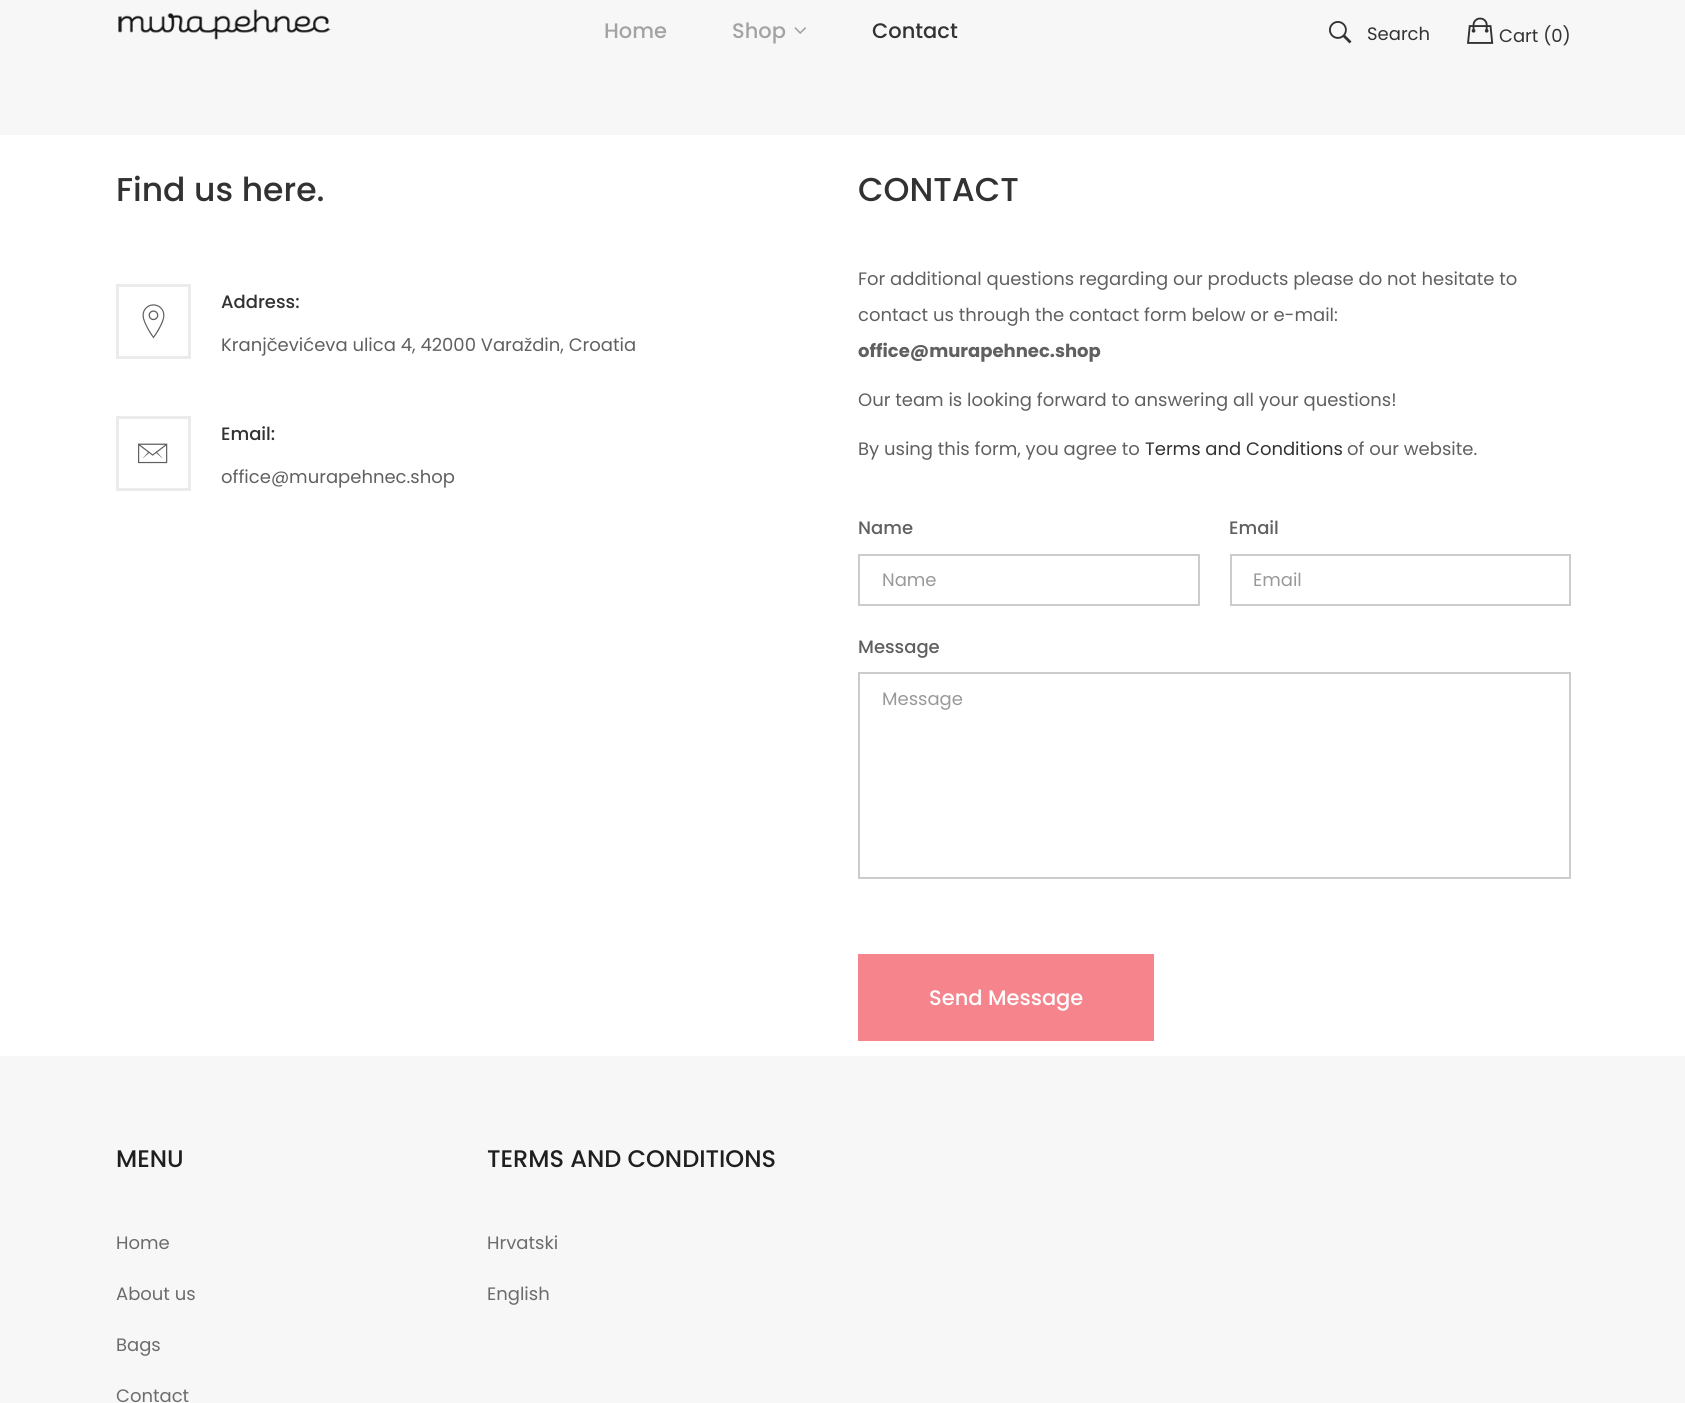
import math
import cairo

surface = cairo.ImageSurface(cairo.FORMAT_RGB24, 1685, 1403)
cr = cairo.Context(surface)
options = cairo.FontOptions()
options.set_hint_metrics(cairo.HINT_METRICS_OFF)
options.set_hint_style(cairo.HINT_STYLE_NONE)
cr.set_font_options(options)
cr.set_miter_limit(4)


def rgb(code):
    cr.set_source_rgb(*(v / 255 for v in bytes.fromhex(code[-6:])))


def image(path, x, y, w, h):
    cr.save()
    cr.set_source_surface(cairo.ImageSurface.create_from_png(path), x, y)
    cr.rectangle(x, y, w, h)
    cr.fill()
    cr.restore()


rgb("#f7f7f7")
cr.paint()
image("img/1.png", 118, 9, 213, 31)
image("img/2.png", 794, 27, 12, 7)
image("img/3.png", 1329, 21, 23, 23)
image("img/4.png", 1467, 17, 27, 27)
rgb("#ffffff")
cr.rectangle(0, 135, 1685, 921)
cr.fill()
cr.rectangle(117.5, 285.5, 72, 72)
rgb("#ebebeb")
cr.set_line_width(3)
cr.stroke()
image("img/5.png", 142, 304, 23, 35)
cr.rectangle(117.5, 417.5, 72, 72)
cr.stroke()
image("img/6.png", 138, 443, 30, 21)
cr.rectangle(859, 555, 340, 50)
rgb("#cccccc")
cr.set_line_width(2)
cr.stroke()
cr.rectangle(1231, 555, 339, 50)
cr.stroke()
cr.rectangle(859, 673, 711, 205)
cr.stroke()
rgb("#f5848c")
cr.rectangle(858, 954, 296, 87)
cr.fill()
cr.select_font_face("Poppins Medium")
cr.set_font_size(21)
rgb("#a3a3a3")
cr.move_to(604, 38)
cr.show_text("Home")
cr.move_to(732, 38)
cr.show_text("Shop")
rgb("#323232")
cr.move_to(872, 38)
cr.show_text("Contact")
cr.select_font_face("Poppins")
cr.set_font_size(18)
cr.move_to(1367, 40)
cr.show_text("Search")
cr.move_to(1499, 42)
cr.show_text("Cart (0)")
cr.select_font_face("Poppins Medium")
cr.set_font_size(33)
cr.move_to(116, 201)
cr.show_text("Find us here.")
cr.set_font_size(18)
cr.move_to(221, 308)
cr.show_text("Address:")
cr.select_font_face("Poppins")
rgb("#606060")
cr.move_to(221, 351)
cr.show_text("Kranjčevićeva ulica 4, 42000 Varaždin, Croatia")
cr.select_font_face("Poppins Medium")
rgb("#323232")
cr.move_to(221, 440)
cr.show_text("Email:")
cr.select_font_face("Poppins")
rgb("#606060")
cr.move_to(221, 483)
cr.show_text("office@murapehnec.shop")
cr.select_font_face("Poppins Medium")
cr.set_font_size(33)
rgb("#323232")
cr.move_to(858, 201)
cr.show_text("CONTACT")
cr.select_font_face("Poppins")
cr.set_font_size(18)
rgb("#606060")
cr.move_to(858, 285)
cr.show_text("For additional questions regarding our products please do not hesitate to")
cr.move_to(858, 321)
cr.show_text("contact us through the contact form below or e-mail:")
cr.select_font_face("Poppins", cairo.FONT_SLANT_NORMAL, cairo.FONT_WEIGHT_BOLD)
cr.move_to(858, 357)
cr.show_text("office@murapehnec.shop")
cr.select_font_face("Poppins")
cr.move_to(858, 406)
cr.show_text("Our team is looking forward to answering all your questions!")
cr.move_to(858, 455)
cr.show_text("By using this form, you agree to")
rgb("#323232")
cr.move_to(1145, 455)
cr.show_text("Terms and Conditions")
rgb("#606060")
cr.move_to(1347, 455)
cr.show_text("of our website.")
cr.select_font_face("Poppins Medium")
cr.move_to(858, 534)
cr.show_text("Name")
cr.select_font_face("Poppins")
rgb("#999999")
cr.move_to(882, 586)
cr.show_text("Name")
cr.select_font_face("Poppins Medium")
rgb("#606060")
cr.move_to(1229, 534)
cr.show_text("Email")
cr.select_font_face("Poppins")
rgb("#999999")
cr.move_to(1253, 586)
cr.show_text("Email")
cr.select_font_face("Poppins Medium")
rgb("#606060")
cr.move_to(858, 653)
cr.show_text("Message")
cr.select_font_face("Poppins")
rgb("#999999")
cr.move_to(882, 705)
cr.show_text("Message")
cr.select_font_face("Poppins Medium")
cr.set_font_size(21)
rgb("#ffffff")
cr.move_to(929, 1005)
cr.show_text("Send Message")
cr.set_font_size(24)
rgb("#1f1f1f")
cr.move_to(116, 1167)
cr.show_text("MENU")
cr.select_font_face("Poppins")
cr.set_font_size(18)
rgb("#6c6c6c")
for x, y, s in [
    (116, 1249, "Home"),
    (116, 1300, "About us"),
    (116, 1351, "Bags"),
    (116, 1402, "Contact"),
]:
    cr.move_to(x, y)
    cr.show_text(s)
cr.select_font_face("Poppins Medium")
cr.set_font_size(24)
rgb("#1f1f1f")
cr.move_to(487, 1167)
cr.show_text("TERMS AND CONDITIONS")
cr.select_font_face("Poppins")
cr.set_font_size(18)
rgb("#6c6c6c")
cr.move_to(487, 1249)
cr.show_text("Hrvatski")
cr.move_to(487, 1300)
cr.show_text("English")
surface.write_to_png("page.png")
